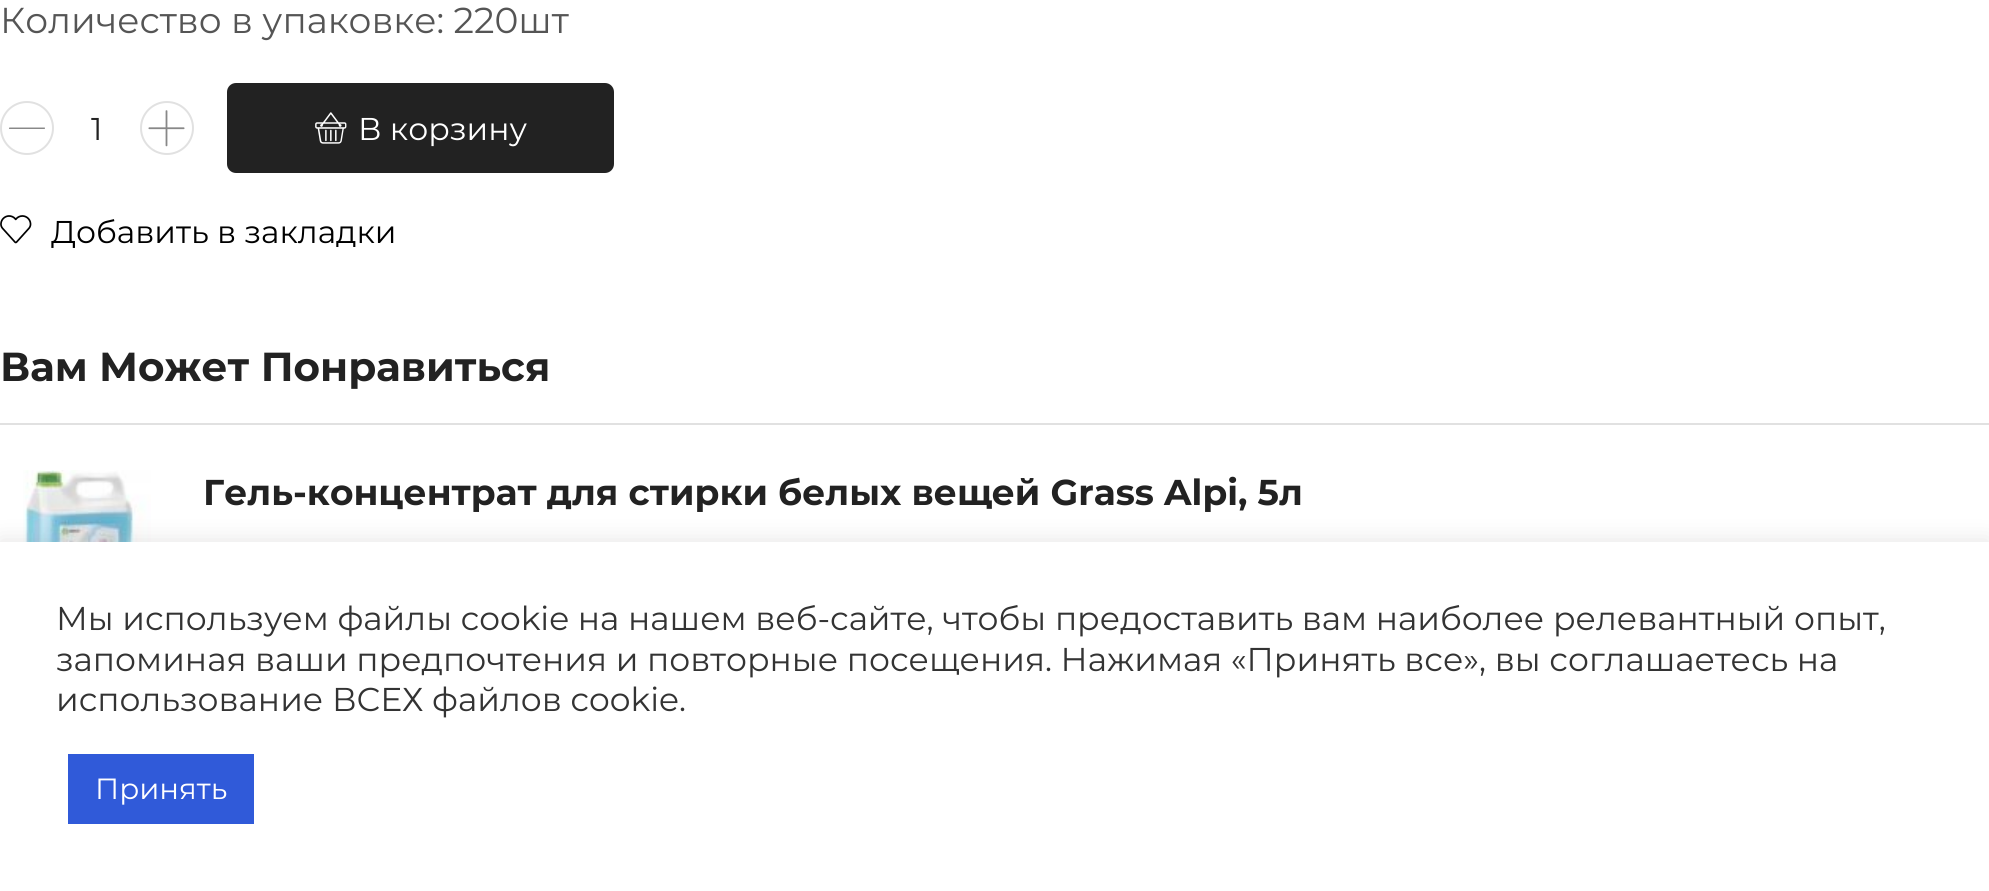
import math
import cairo

surface = cairo.ImageSurface(cairo.FORMAT_RGB24, 1989, 891)
cr = cairo.Context(surface)
options = cairo.FontOptions()
options.set_hint_metrics(cairo.HINT_METRICS_OFF)
options.set_hint_style(cairo.HINT_STYLE_NONE)
cr.set_font_options(options)
cr.set_miter_limit(4)


def rgb(code):
    cr.set_source_rgb(*(v / 255 for v in bytes.fromhex(code[-6:])))


def rrect(x, y, w, h, r):
    cr.new_sub_path()
    for i, (u, v) in enumerate([(x + w - r, y + h - r), (x + r, y + h - r), (x + r, y + r), (x + w - r, y + r)]):
        cr.arc(u, v, r, i * math.pi / 2, (i + 1) * math.pi / 2)
    cr.close_path()


def soft_shadow(x, y, w, h, r, blur, alpha):
    cr.push_group_with_content(cairo.CONTENT_ALPHA)
    cr.set_operator(cairo.OPERATOR_SOURCE)
    for i in range(15, -16, -2):
        e = blur * i / 6
        if min(w, h) + 2 * e > 0:
            cr.set_source_rgba(0, 0, 0, alpha * math.erfc((i - 1) / 8.5) / 2)
            rrect(x - e, y - e, w + 2 * e, h + 2 * e, max(0, min(r + e + blur * .6, min(w, h) / 2 + e)))
            cr.fill()
    cr.mask(cr.pop_group())


def image(path, x, y, w, h):
    cr.save()
    cr.set_source_surface(cairo.ImageSurface.create_from_png(path), x, y)
    cr.rectangle(x, y, w, h)
    cr.fill()
    cr.restore()


rgb("#ffffff")
cr.paint()
cr.arc(27, 128, 26, 0, 2 * math.pi)
rgb("#e1e1e1")
cr.stroke()
rgb("#888888")
cr.new_path()
cr.move_to(44.5, 127.5)
cr.line_to(9.5, 127.5)
cr.curve_to(8.5, 128, 9, 129, 9.5, 129)
cr.line_to(44.5, 129)
cr.line_to(45, 128.5)
cr.curve_to(45, 128, 45, 127.5, 44.5, 127.5)
cr.close_path()
cr.fill()
cr.arc(167, 128, 26, 0, 2 * math.pi)
rgb("#e1e1e1")
cr.stroke()
image("img/1.png", 148, 110, 37, 37)
rgb("#222222")
rrect(227, 83, 387, 90, 9)
cr.fill()
image("img/2.png", 315, 112, 32, 32)
image("img/3.png", 0, 215, 32, 29)
rgb("#e1e1e1")
cr.rectangle(0, 423, 1989, 2)
cr.fill()
image("img/4.png", 23, 470, 128, 72)
rgb("#acabab")
soft_shadow(0, 540, 1989, 349, 0, 11, 0.3)
rgb("#ffffff")
cr.rectangle(0, 542, 1989, 349)
cr.fill()
rgb("#305ad9")
cr.rectangle(68, 754, 186, 70)
cr.fill()
cr.select_font_face("Montserrat")
cr.set_font_size(36)
rgb("#555555")
cr.move_to(0, 33)
cr.show_text("Количество в упаковке: 220шт")
cr.set_font_size(31.5)
rgb("#222222")
cr.move_to(91, 140)
cr.show_text("1")
rgb("#ffffff")
cr.move_to(358, 140)
cr.show_text("В корзину")
rgb("#000000")
cr.move_to(51, 243)
cr.show_text("Добавить в закладки")
cr.select_font_face("Montserrat", cairo.FONT_SLANT_NORMAL, cairo.FONT_WEIGHT_BOLD)
cr.set_font_size(40.5)
rgb("#222222")
cr.move_to(0, 381)
cr.show_text("Вам Может Понравиться")
cr.set_font_size(35.9)
cr.move_to(203, 505)
cr.show_text("Гель-концентрат для стирки белых вещей Grass Alpi, 5л")
cr.select_font_face("Montserrat")
cr.set_font_size(33)
rgb("#333333")
for x, y, s in [
    (56, 630, "Мы используем файлы cookie на нашем веб-сайте, чтобы предоставить вам наиболее релевантный опыт,"),
    (56, 671, "запоминая ваши предпочтения и повторные посещения. Нажимая «Принять все», вы соглашаетесь на"),
    (56, 711, "использование ВСЕХ файлов cookie."),
]:
    cr.move_to(x, y)
    cr.show_text(s)
cr.set_font_size(29.25)
rgb("#ffffff")
cr.move_to(95, 799)
cr.show_text("Принять")
surface.write_to_png("page.png")
